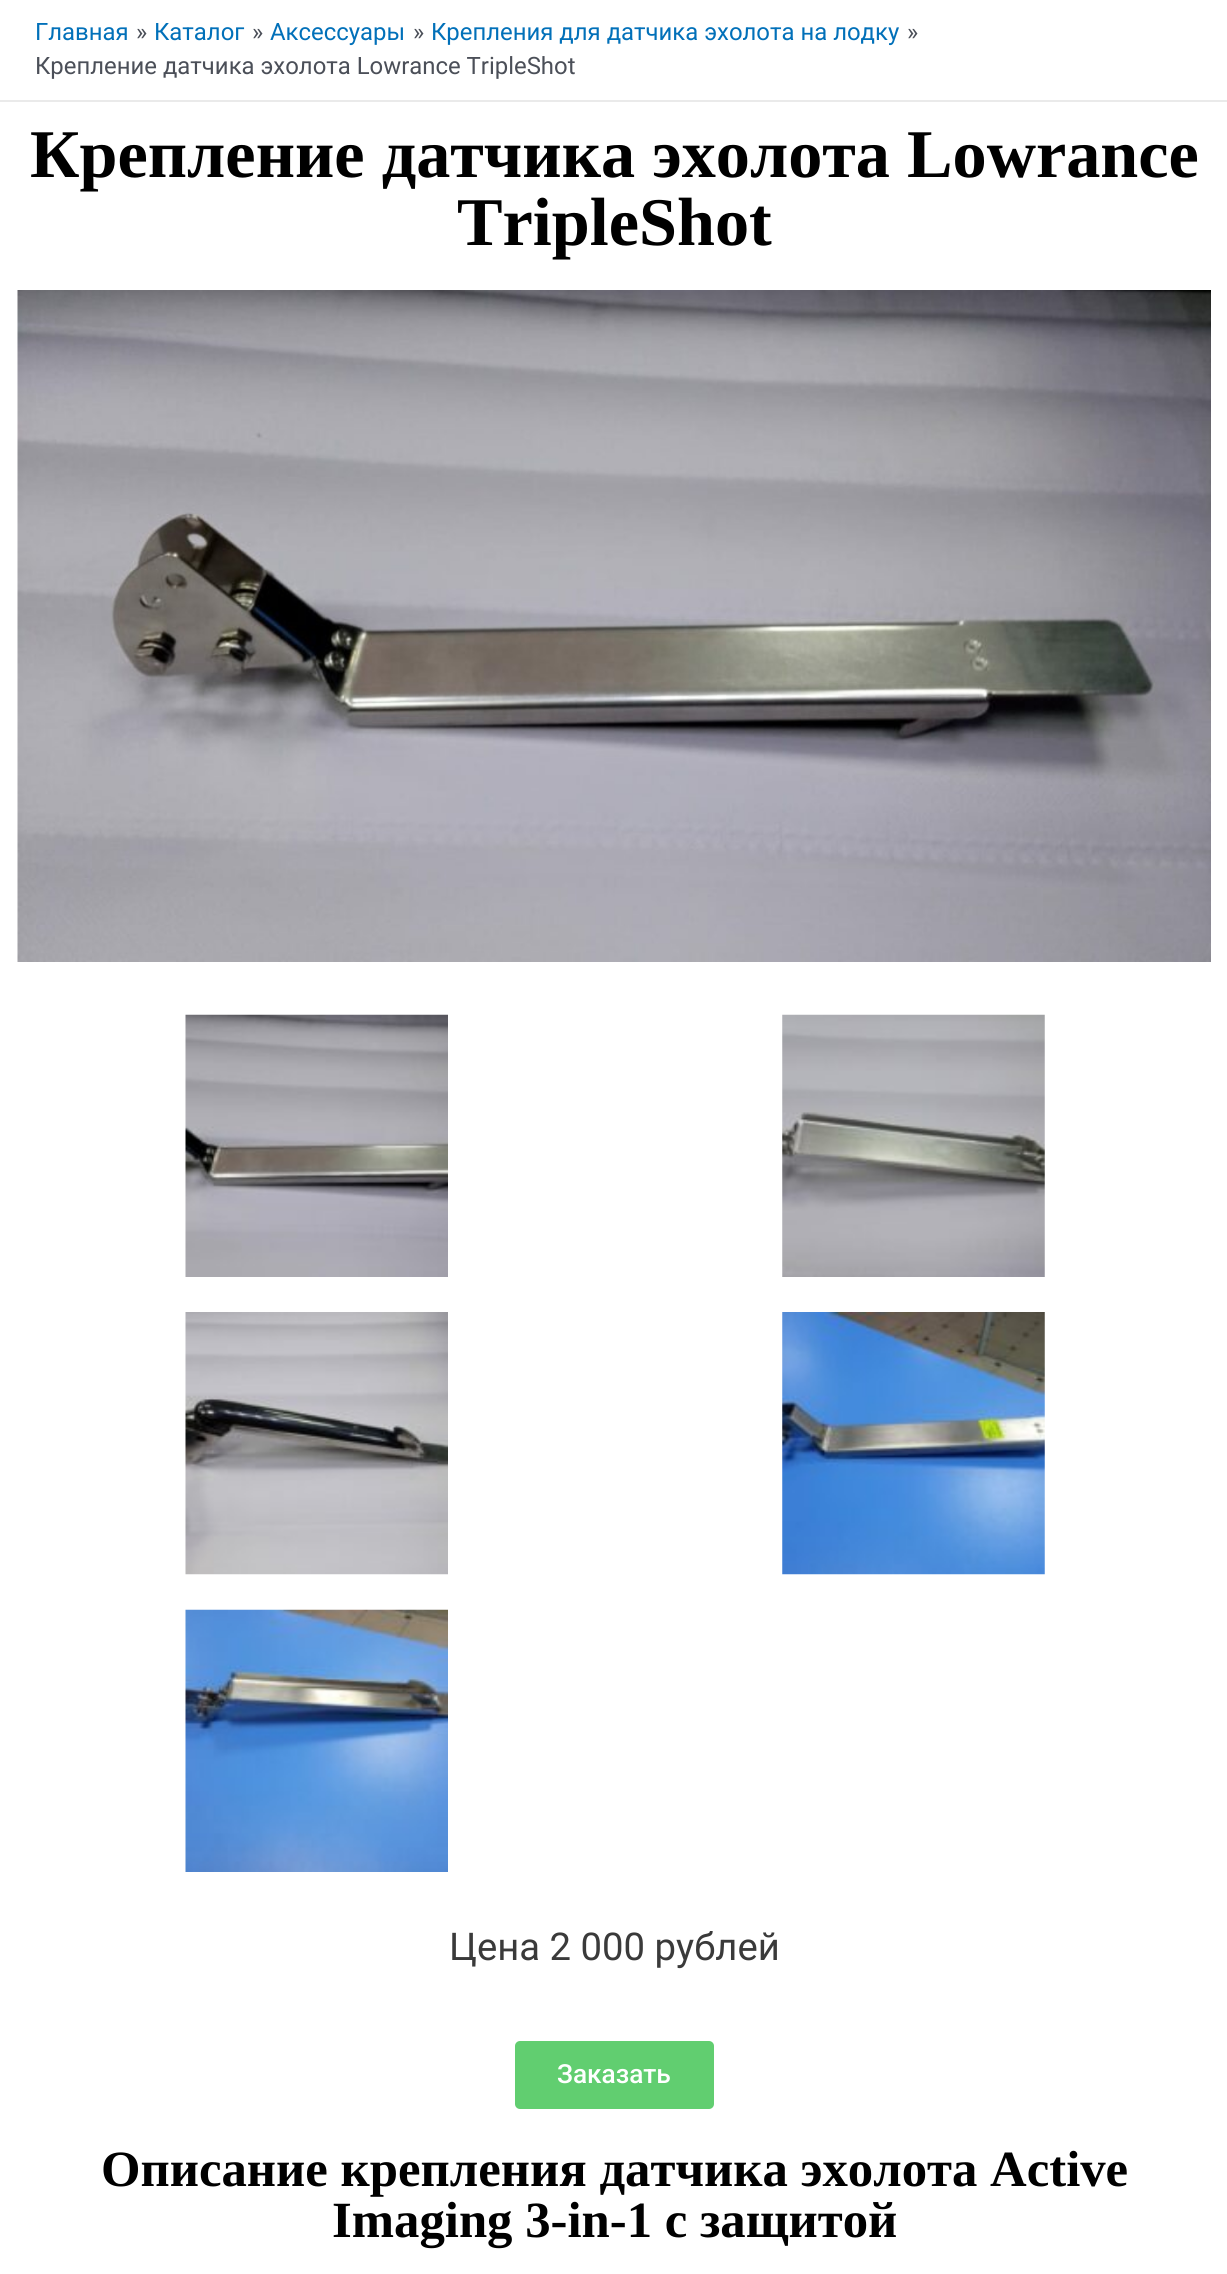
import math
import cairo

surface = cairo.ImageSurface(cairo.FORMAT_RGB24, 1227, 2274)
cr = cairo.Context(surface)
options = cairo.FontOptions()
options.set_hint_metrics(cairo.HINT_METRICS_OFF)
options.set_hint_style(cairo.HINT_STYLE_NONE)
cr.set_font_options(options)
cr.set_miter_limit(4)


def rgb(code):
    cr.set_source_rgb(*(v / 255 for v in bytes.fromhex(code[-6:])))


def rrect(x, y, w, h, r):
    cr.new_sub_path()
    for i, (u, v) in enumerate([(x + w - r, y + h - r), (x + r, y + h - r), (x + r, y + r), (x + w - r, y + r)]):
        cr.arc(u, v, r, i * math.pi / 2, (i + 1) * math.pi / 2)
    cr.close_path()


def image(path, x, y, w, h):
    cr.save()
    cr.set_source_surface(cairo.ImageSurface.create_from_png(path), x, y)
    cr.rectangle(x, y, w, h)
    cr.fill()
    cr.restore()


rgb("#ffffff")
cr.paint()
rgb("#eaeaea")
cr.rectangle(0, 100, 1227, 2)
cr.fill()
image("img/1.png", 17, 290, 1194, 672)
image("img/2.png", 185, 1014, 263, 263)
image("img/3.png", 782, 1014, 263, 263)
image("img/4.png", 185, 1312, 263, 263)
image("img/5.png", 782, 1312, 263, 263)
image("img/6.png", 185, 1609, 263, 263)
rgb("#61ce70")
rrect(515, 2041, 199, 68, 5)
cr.fill()
cr.select_font_face("Roboto")
cr.set_font_size(23.9)
rgb("#0170b9")
cr.move_to(35, 40)
cr.show_text("Главная")
rgb("#4b4f58")
cr.move_to(136, 40)
cr.show_text("»")
rgb("#0170b9")
cr.move_to(154, 40)
cr.show_text("Каталог")
rgb("#4b4f58")
cr.move_to(252, 40)
cr.show_text("»")
rgb("#0170b9")
cr.move_to(270, 40)
cr.show_text("Аксессуары")
rgb("#4b4f58")
cr.move_to(413, 40)
cr.show_text("»")
rgb("#0170b9")
cr.move_to(431, 40)
cr.show_text("Крепления для датчика эхолота на лодку")
rgb("#4b4f58")
cr.move_to(907, 40)
cr.show_text("»")
cr.move_to(35, 74)
cr.show_text("Крепление датчика эхолота Lowrance TripleShot")
cr.select_font_face("Liberation Serif", cairo.FONT_SLANT_NORMAL, cairo.FONT_WEIGHT_BOLD)
cr.set_font_size(68.25)
rgb("#000000")
cr.move_to(30, 177)
cr.show_text("Крепление датчика эхолота Lowrance")
cr.move_to(457, 245)
cr.show_text("TripleShot")
cr.select_font_face("Roboto")
cr.set_font_size(38.25)
rgb("#3a3a3a")
cr.move_to(449, 1960)
cr.show_text("Цена 2 000 рублей")
cr.select_font_face("Roboto Medium")
cr.set_font_size(26.25)
rgb("#ffffff")
cr.move_to(557, 2083)
cr.show_text("Заказать")
cr.select_font_face("Liberation Serif", cairo.FONT_SLANT_NORMAL, cairo.FONT_WEIGHT_BOLD)
cr.set_font_size(50.75)
rgb("#000000")
cr.move_to(101, 2186)
cr.show_text("Описание крепления датчика эхолота Active")
cr.move_to(332, 2237)
cr.show_text("Imaging 3-in-1 с защитой")
surface.write_to_png("page.png")
